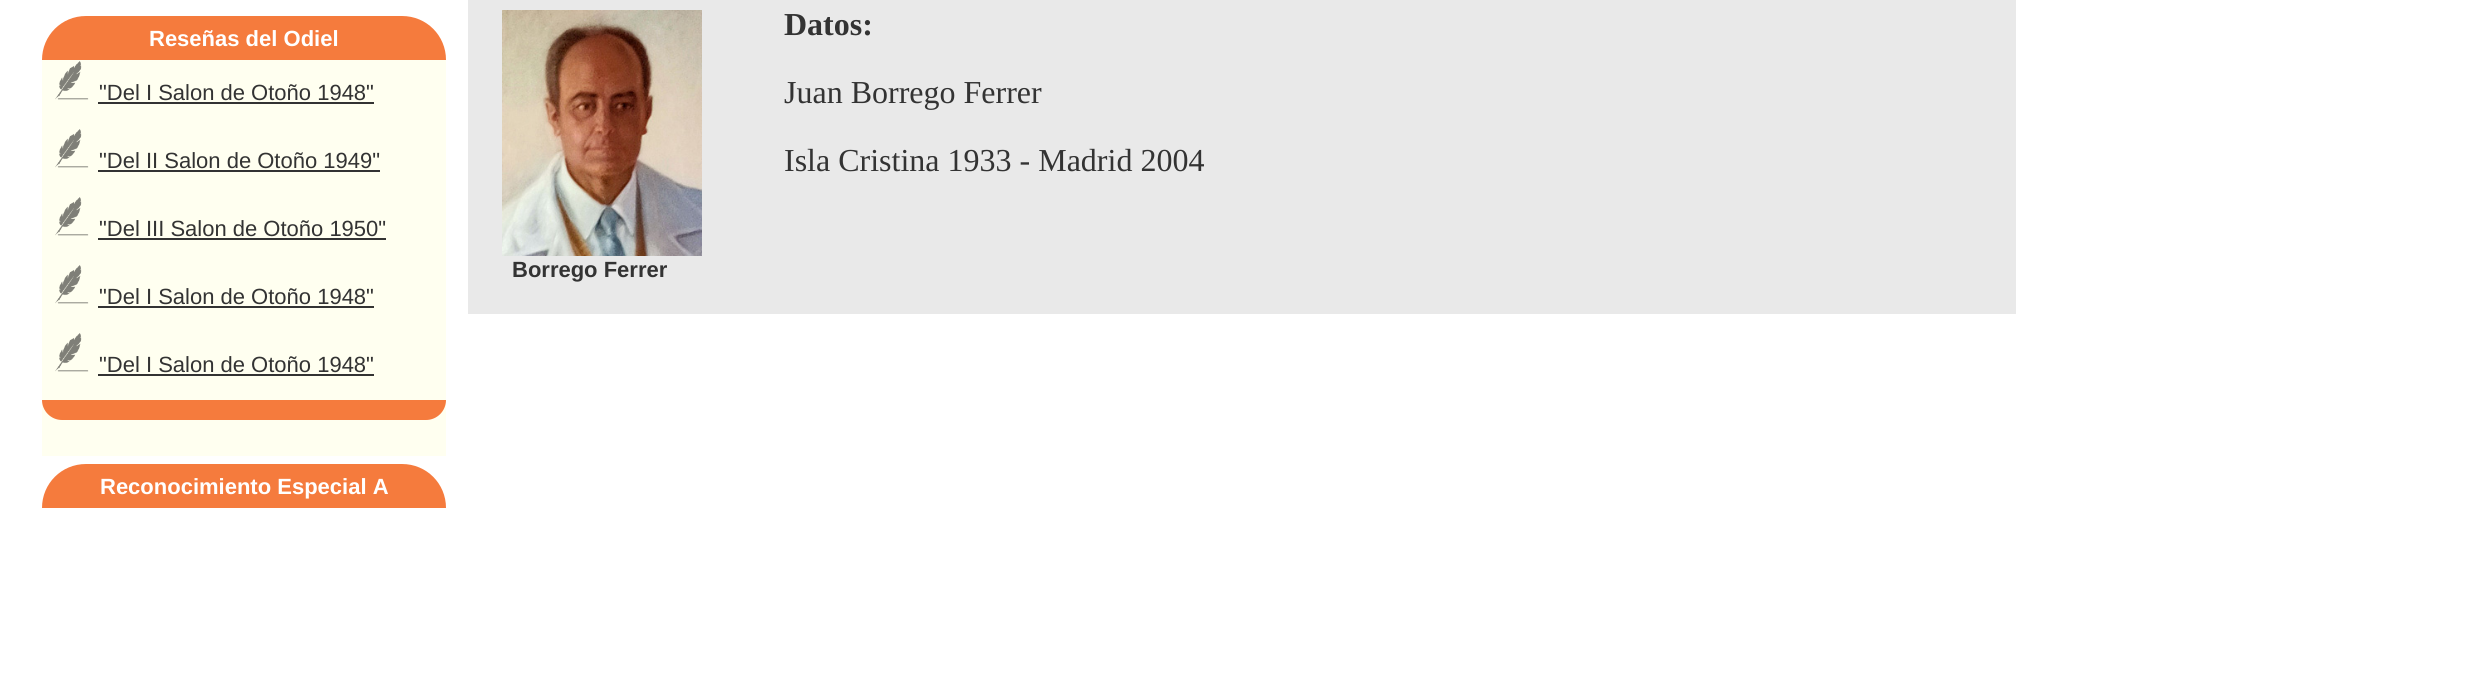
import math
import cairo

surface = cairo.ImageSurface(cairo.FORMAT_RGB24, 2483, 682)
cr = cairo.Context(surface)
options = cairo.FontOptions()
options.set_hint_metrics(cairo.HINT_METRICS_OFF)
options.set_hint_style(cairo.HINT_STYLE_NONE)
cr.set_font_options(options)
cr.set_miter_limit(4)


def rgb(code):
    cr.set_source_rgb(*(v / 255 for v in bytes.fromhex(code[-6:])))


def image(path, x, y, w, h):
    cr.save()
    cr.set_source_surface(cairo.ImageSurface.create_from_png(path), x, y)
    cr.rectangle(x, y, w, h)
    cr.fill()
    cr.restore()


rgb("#ffffff")
cr.paint()
rgb("#f57b3d")
cr.new_path()
cr.move_to(86, 16)
cr.line_to(402, 16)
cr.curve_to(426.5, 16, 446, 35.5, 446, 60)
cr.line_to(42, 60)
cr.curve_to(42, 35.5, 61.5, 16, 86, 16)
cr.close_path()
cr.fill()
rgb("#fffff0")
cr.rectangle(42, 60, 404, 396)
cr.fill()
image("img/1.png", 55, 61, 34, 39)
rgb("#333333")
cr.rectangle(98, 102, 276, 2)
cr.fill()
image("img/1.png", 55, 129, 34, 39)
cr.rectangle(98, 170, 282, 2)
cr.fill()
image("img/2.png", 55, 197, 34, 39)
cr.rectangle(98, 238, 288, 2)
cr.fill()
image("img/1.png", 55, 265, 34, 39)
cr.rectangle(98, 306, 276, 2)
cr.fill()
image("img/1.png", 55, 333, 34, 39)
cr.rectangle(98, 374, 276, 2)
cr.fill()
rgb("#f57b3d")
cr.new_path()
cr.move_to(42, 400)
cr.line_to(446, 400)
cr.curve_to(446, 411, 437, 420, 426, 420)
cr.line_to(62, 420)
cr.curve_to(51, 420, 42, 411, 42, 400)
cr.close_path()
cr.fill()
cr.new_path()
cr.move_to(86, 464)
cr.line_to(402, 464)
cr.curve_to(426.5, 464, 446, 483.5, 446, 508)
cr.line_to(42, 508)
cr.curve_to(42, 483.5, 61.5, 464, 86, 464)
cr.close_path()
cr.fill()
rgb("#e9e9e9")
cr.rectangle(468, 0, 1548, 314)
cr.fill()
image("img/3.png", 502, 10, 200, 246)
cr.select_font_face("Liberation Sans", cairo.FONT_SLANT_NORMAL, cairo.FONT_WEIGHT_BOLD)
cr.set_font_size(22)
rgb("#ffffff")
cr.move_to(149, 46)
cr.show_text("Reseñas del Odiel")
cr.select_font_face("Liberation Sans")
rgb("#333333")
for x, y, s in [
    (99, 100, "\"Del I Salon de Otoño 1948\""),
    (99, 168, "\"Del II Salon de Otoño 1949\""),
    (99, 236, "\"Del III Salon de Otoño 1950\""),
    (99, 304, "\"Del I Salon de Otoño 1948\""),
    (99, 372, "\"Del I Salon de Otoño 1948\""),
]:
    cr.move_to(x, y)
    cr.show_text(s)
cr.select_font_face("Liberation Sans", cairo.FONT_SLANT_NORMAL, cairo.FONT_WEIGHT_BOLD)
rgb("#ffffff")
cr.move_to(100, 494)
cr.show_text("Reconocimiento Especial A")
cr.select_font_face("Liberation Serif", cairo.FONT_SLANT_NORMAL, cairo.FONT_WEIGHT_BOLD)
cr.set_font_size(32)
rgb("#333333")
cr.move_to(784, 35)
cr.show_text("Datos:")
cr.select_font_face("Liberation Serif")
cr.move_to(784, 103)
cr.show_text("Juan Borrego Ferrer")
cr.move_to(784, 171)
cr.show_text("Isla Cristina 1933 - Madrid 2004")
cr.select_font_face("Liberation Sans", cairo.FONT_SLANT_NORMAL, cairo.FONT_WEIGHT_BOLD)
cr.set_font_size(22)
cr.move_to(512, 277)
cr.show_text("Borrego Ferrer")
surface.write_to_png("page.png")
